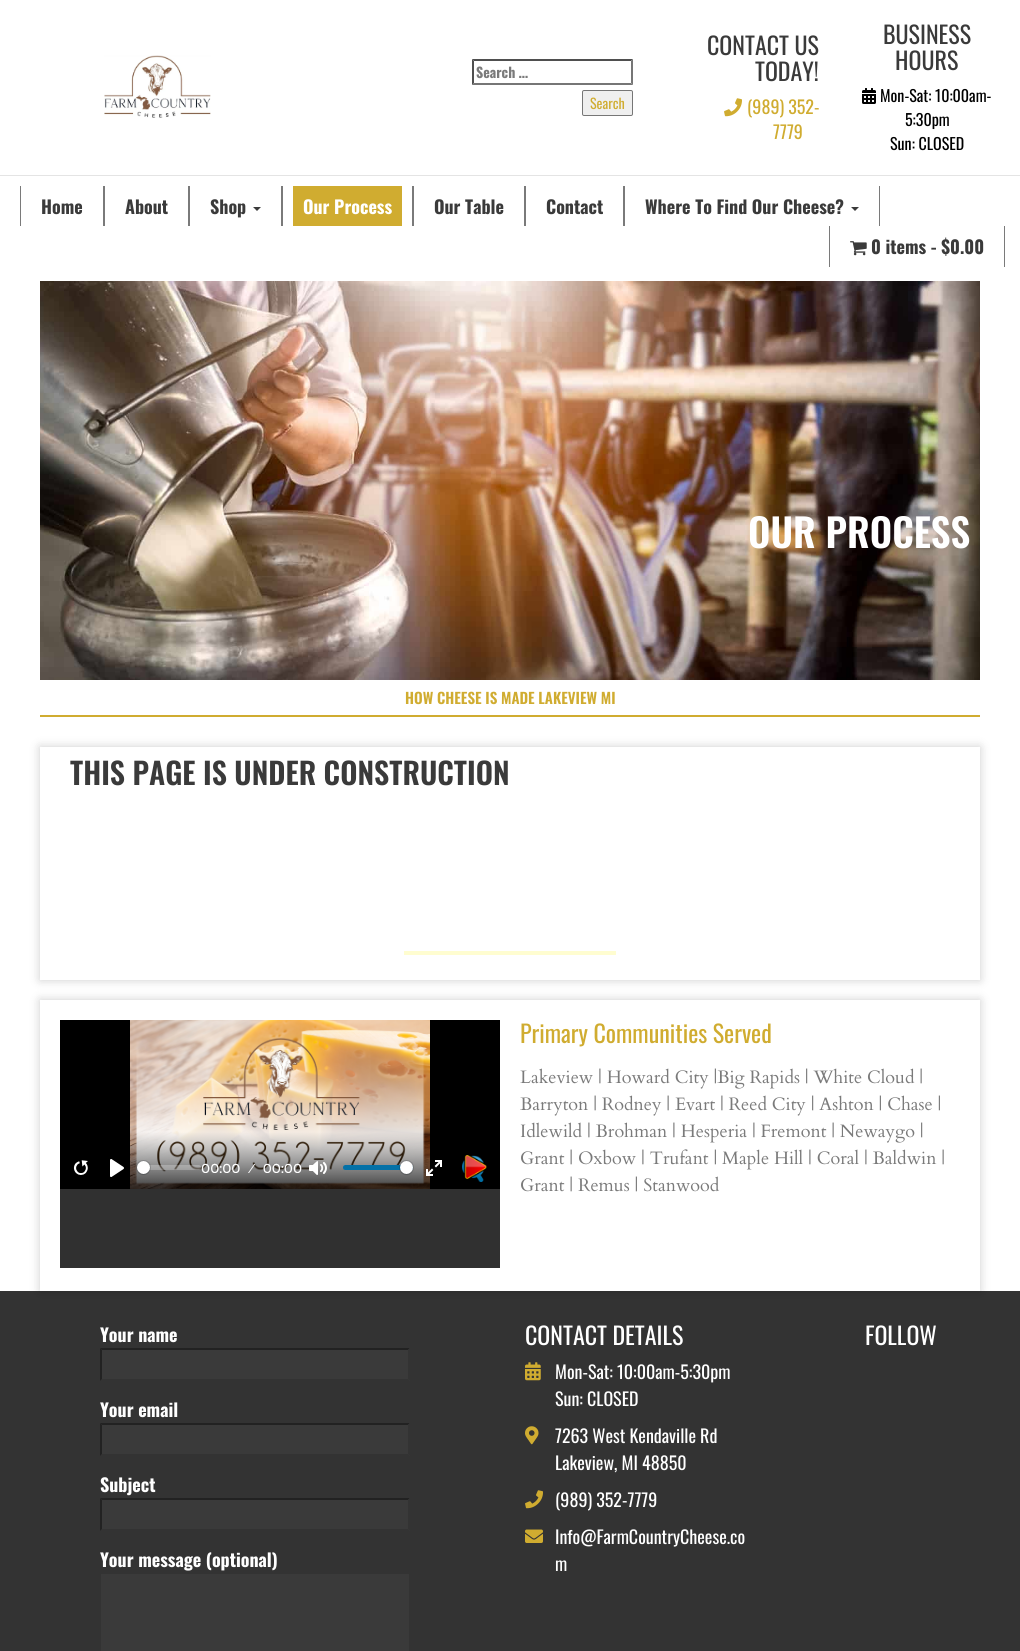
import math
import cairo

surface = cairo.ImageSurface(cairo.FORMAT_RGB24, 1020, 1651)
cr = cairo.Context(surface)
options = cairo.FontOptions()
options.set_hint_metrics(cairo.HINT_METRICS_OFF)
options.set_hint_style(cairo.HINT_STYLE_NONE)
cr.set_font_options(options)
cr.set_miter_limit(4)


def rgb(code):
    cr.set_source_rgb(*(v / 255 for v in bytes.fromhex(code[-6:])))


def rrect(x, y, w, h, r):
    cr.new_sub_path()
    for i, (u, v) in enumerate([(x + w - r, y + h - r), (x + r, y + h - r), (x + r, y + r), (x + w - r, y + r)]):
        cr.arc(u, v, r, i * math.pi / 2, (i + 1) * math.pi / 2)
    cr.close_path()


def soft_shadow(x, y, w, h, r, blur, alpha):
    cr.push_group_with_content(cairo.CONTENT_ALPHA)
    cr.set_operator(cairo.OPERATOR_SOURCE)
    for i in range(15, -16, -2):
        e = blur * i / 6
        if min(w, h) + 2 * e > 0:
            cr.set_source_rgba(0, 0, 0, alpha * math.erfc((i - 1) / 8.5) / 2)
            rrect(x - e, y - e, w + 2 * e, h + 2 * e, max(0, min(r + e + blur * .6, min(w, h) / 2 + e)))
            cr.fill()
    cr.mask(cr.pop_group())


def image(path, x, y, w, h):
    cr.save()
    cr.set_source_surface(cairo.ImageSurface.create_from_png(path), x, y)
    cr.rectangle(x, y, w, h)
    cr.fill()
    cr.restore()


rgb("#ffffff")
cr.paint()
image("img/1.png", 104, 55, 107, 63)
rgb("#4f4f4f")
cr.new_path()
cr.move_to(472, 59)
cr.line_to(633, 59)
cr.line_to(631, 61)
cr.line_to(474, 61)
cr.close_path()
cr.fill()
rgb("#767676")
cr.new_path()
cr.move_to(633, 59)
cr.line_to(633, 85)
cr.line_to(631, 83)
cr.line_to(631, 61)
cr.close_path()
cr.fill()
cr.new_path()
cr.move_to(633, 85)
cr.line_to(472, 85)
cr.line_to(474, 83)
cr.line_to(631, 83)
cr.close_path()
cr.fill()
rgb("#4f4f4f")
cr.new_path()
cr.move_to(472, 85)
cr.line_to(472, 59)
cr.line_to(474, 61)
cr.line_to(474, 83)
cr.close_path()
cr.fill()
rgb("#efefef")
rrect(582.5, 90.5, 50, 25, 1.5)
cr.fill_preserve()
rgb("#767676")
cr.set_line_width(1)
cr.stroke()
image("img/2.png", 724, 98, 18, 19)
image("img/3.png", 862, 88, 14, 16)
for x, y, w, h, color in [
    (0, 175, 1020, 1, "#e4e4e4"),
    (103, 186, 2, 40, "#7a7a7a"),
    (20, 186, 1, 40, "#7a7a7a"),
    (188, 186, 2, 40, "#7a7a7a"),
    (281, 186, 2, 40, "#7a7a7a"),
]:
    rgb(color)
    cr.rectangle(x, y, w, h)
    cr.fill()
rgb("#3a3a3a")
cr.new_path()
cr.move_to(253, 207)
cr.line_to(261, 207)
cr.line_to(257, 211)
cr.close_path()
cr.fill()
for x, y, w, h, color in [
    (412, 186, 2, 40, "#7a7a7a"),
    (293, 186, 109, 40, "#d0ac30"),
    (524, 186, 2, 40, "#7a7a7a"),
    (623, 186, 2, 40, "#7a7a7a"),
    (879, 186, 1, 40, "#7a7a7a"),
]:
    rgb(color)
    cr.rectangle(x, y, w, h)
    cr.fill()
rgb("#3a3a3a")
cr.new_path()
cr.move_to(851, 207)
cr.line_to(859, 207)
cr.line_to(855, 211)
cr.close_path()
cr.fill()
rgb("#7a7a7a")
cr.rectangle(1004, 226, 1, 41)
cr.fill()
cr.rectangle(829, 226, 1, 41)
cr.fill()
image("img/4.png", 850, 241, 17, 15)
image("img/5.png", 40, 281, 940, 399)
rgb("#d0ac30")
cr.rectangle(40, 715, 940, 2)
cr.fill()
cr.save()
cr.set_fill_rule(cairo.FILL_RULE_EVEN_ODD)
cr.new_path()
cr.move_to(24, 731)
cr.line_to(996, 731)
cr.line_to(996, 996)
cr.line_to(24, 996)
cr.close_path()
cr.move_to(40, 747)
cr.line_to(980, 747)
cr.line_to(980, 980)
cr.line_to(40, 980)
cr.close_path()
cr.clip()
rgb("#000000")
soft_shadow(40, 747, 940, 233, 0, 5, 0.2)
cr.restore()
rgb("#fffdd0")
cr.rectangle(404, 951, 212, 4)
cr.fill()
rgb("#333333")
cr.rectangle(0, 1291, 1020, 360)
cr.fill()
cr.save()
cr.set_fill_rule(cairo.FILL_RULE_EVEN_ODD)
cr.new_path()
cr.move_to(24, 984)
cr.line_to(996, 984)
cr.line_to(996, 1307)
cr.line_to(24, 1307)
cr.close_path()
cr.move_to(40, 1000)
cr.line_to(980, 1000)
cr.line_to(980, 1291)
cr.line_to(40, 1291)
cr.close_path()
cr.clip()
rgb("#000000")
soft_shadow(40, 1000, 940, 291, 0, 5, 0.2)
cr.restore()
image("img/6.png", 60, 1020, 440, 248)
rgb("#3a3a3a")
cr.rectangle(100, 1348, 310, 33)
cr.fill()
rgb("#222222")
cr.new_path()
cr.move_to(100, 1348)
cr.line_to(410, 1348)
cr.line_to(408, 1350)
cr.line_to(102, 1350)
cr.close_path()
cr.fill()
rgb("#333333")
cr.new_path()
cr.move_to(410, 1348)
cr.line_to(410, 1381)
cr.line_to(408, 1379)
cr.line_to(408, 1350)
cr.close_path()
cr.fill()
cr.new_path()
cr.move_to(410, 1381)
cr.line_to(100, 1381)
cr.line_to(102, 1379)
cr.line_to(408, 1379)
cr.close_path()
cr.fill()
rgb("#222222")
cr.new_path()
cr.move_to(100, 1381)
cr.line_to(100, 1348)
cr.line_to(102, 1350)
cr.line_to(102, 1379)
cr.close_path()
cr.fill()
rgb("#3a3a3a")
cr.rectangle(100, 1423, 310, 33)
cr.fill()
rgb("#222222")
cr.new_path()
cr.move_to(100, 1423)
cr.line_to(410, 1423)
cr.line_to(408, 1425)
cr.line_to(102, 1425)
cr.close_path()
cr.fill()
rgb("#333333")
cr.new_path()
cr.move_to(410, 1423)
cr.line_to(410, 1456)
cr.line_to(408, 1454)
cr.line_to(408, 1425)
cr.close_path()
cr.fill()
cr.new_path()
cr.move_to(410, 1456)
cr.line_to(100, 1456)
cr.line_to(102, 1454)
cr.line_to(408, 1454)
cr.close_path()
cr.fill()
rgb("#222222")
cr.new_path()
cr.move_to(100, 1456)
cr.line_to(100, 1423)
cr.line_to(102, 1425)
cr.line_to(102, 1454)
cr.close_path()
cr.fill()
rgb("#3a3a3a")
cr.rectangle(100, 1498, 310, 33)
cr.fill()
rgb("#222222")
cr.new_path()
cr.move_to(100, 1498)
cr.line_to(410, 1498)
cr.line_to(408, 1500)
cr.line_to(102, 1500)
cr.close_path()
cr.fill()
rgb("#333333")
cr.new_path()
cr.move_to(410, 1498)
cr.line_to(410, 1531)
cr.line_to(408, 1529)
cr.line_to(408, 1500)
cr.close_path()
cr.fill()
cr.new_path()
cr.move_to(410, 1531)
cr.line_to(100, 1531)
cr.line_to(102, 1529)
cr.line_to(408, 1529)
cr.close_path()
cr.fill()
rgb("#222222")
cr.new_path()
cr.move_to(100, 1531)
cr.line_to(100, 1498)
cr.line_to(102, 1500)
cr.line_to(102, 1529)
cr.close_path()
cr.fill()
rgb("#3a3a3a")
cr.rectangle(101, 1574, 308, 77)
cr.fill()
image("img/7.png", 525, 1362, 16, 19)
image("img/8.png", 525, 1426, 14, 19)
image("img/9.png", 525, 1490, 18, 19)
image("img/10.png", 525, 1529, 18, 14)
cr.select_font_face("Oswald", cairo.FONT_SLANT_NORMAL, cairo.FONT_WEIGHT_BOLD)
cr.set_font_size(14)
rgb("#7a7a7a")
cr.move_to(476, 78)
cr.show_text("Search …")
cr.select_font_face("Oswald")
rgb("#d0ac30")
cr.move_to(590, 109)
cr.show_text("Search")
cr.set_font_size(24)
rgb("#3a3a3a")
cr.move_to(707, 55)
cr.show_text("CONTACT US")
cr.move_to(755, 81)
cr.show_text("TODAY!")
cr.set_font_size(18)
rgb("#d0ac30")
cr.move_to(747, 114)
cr.show_text("(989) 352-")
cr.move_to(773, 139)
cr.show_text("7779")
cr.set_font_size(24)
rgb("#3a3a3a")
cr.move_to(883, 44)
cr.show_text("BUSINESS")
cr.move_to(895, 70)
cr.show_text("HOURS")
cr.set_font_size(16)
rgb("#000000")
for x, y, s in [
    (880, 102, "Mon-Sat: 10:00am-"),
    (905, 126, "5:30pm"),
    (890, 150, "Sun: CLOSED"),
]:
    cr.move_to(x, y)
    cr.show_text(s)
cr.select_font_face("Oswald", cairo.FONT_SLANT_NORMAL, cairo.FONT_WEIGHT_BOLD)
cr.set_font_size(18)
rgb("#3a3a3a")
for x, y, s in [
    (41, 214, "Home"),
    (125, 214, "About"),
    (210, 214, "Shop"),
]:
    cr.move_to(x, y)
    cr.show_text(s)
rgb("#ffffff")
cr.move_to(303, 214)
cr.show_text("Our Process")
rgb("#3a3a3a")
for x, y, s in [
    (434, 214, "Our Table"),
    (546, 214, "Contact"),
    (645, 214, "Where To Find Our Cheese?"),
    (871, 254, "0 items - $0.00"),
]:
    cr.move_to(x, y)
    cr.show_text(s)
cr.select_font_face("Oswald SemiBold")
cr.set_font_size(39)
rgb("#ffffff")
cr.move_to(748, 548)
cr.show_text("OUR PROCESS")
cr.set_font_size(15)
rgb("#d0ac30")
cr.move_to(405, 704)
cr.show_text("HOW CHEESE IS MADE LAKEVIEW MI")
cr.set_font_size(30)
rgb("#3a3a3a")
cr.move_to(70, 785)
cr.show_text("THIS PAGE IS UNDER CONSTRUCTION")
cr.select_font_face("Oswald")
cr.set_font_size(24)
rgb("#d0ac30")
cr.move_to(520, 1043)
cr.show_text("Primary Communities Served")
cr.select_font_face("Cardo")
cr.set_font_size(18)
rgb("#7a7a7a")
for x, y, s in [
    (520, 1083, "Lakeview | Howard City |Big Rapids | White Cloud |"),
    (520, 1110, "Barryton | Rodney | Evart | Reed City | Ashton | Chase |"),
    (520, 1137, "Idlewild | Brohman | Hesperia | Fremont | Newaygo |"),
    (520, 1164, "Grant | Oxbow | Trufant | Maple Hill | Coral | Baldwin |"),
    (520, 1191, "Grant | Remus | Stanwood"),
]:
    cr.move_to(x, y)
    cr.show_text(s)
cr.select_font_face("Oswald", cairo.FONT_SLANT_NORMAL, cairo.FONT_WEIGHT_BOLD)
rgb("#ffffff")
for x, y, s in [
    (100, 1342, "Your name"),
    (100, 1417, "Your email"),
    (100, 1492, "Subject"),
    (100, 1567, "Your message (optional)"),
]:
    cr.move_to(x, y)
    cr.show_text(s)
cr.select_font_face("Oswald")
cr.set_font_size(24)
cr.move_to(525, 1345)
cr.show_text("CONTACT DETAILS")
cr.set_font_size(18)
for x, y, s in [
    (555, 1379, "Mon-Sat: 10:00am-5:30pm"),
    (555, 1406, "Sun: CLOSED"),
    (555, 1443, "7263 West Kendaville Rd"),
    (555, 1470, "Lakeview, MI 48850"),
    (555, 1507, "(989) 352-7779"),
    (555, 1544, "Info@FarmCountryCheese.co"),
    (555, 1571, "m"),
]:
    cr.move_to(x, y)
    cr.show_text(s)
cr.set_font_size(24)
cr.move_to(865, 1345)
cr.show_text("FOLLOW")
surface.write_to_png("page.png")
